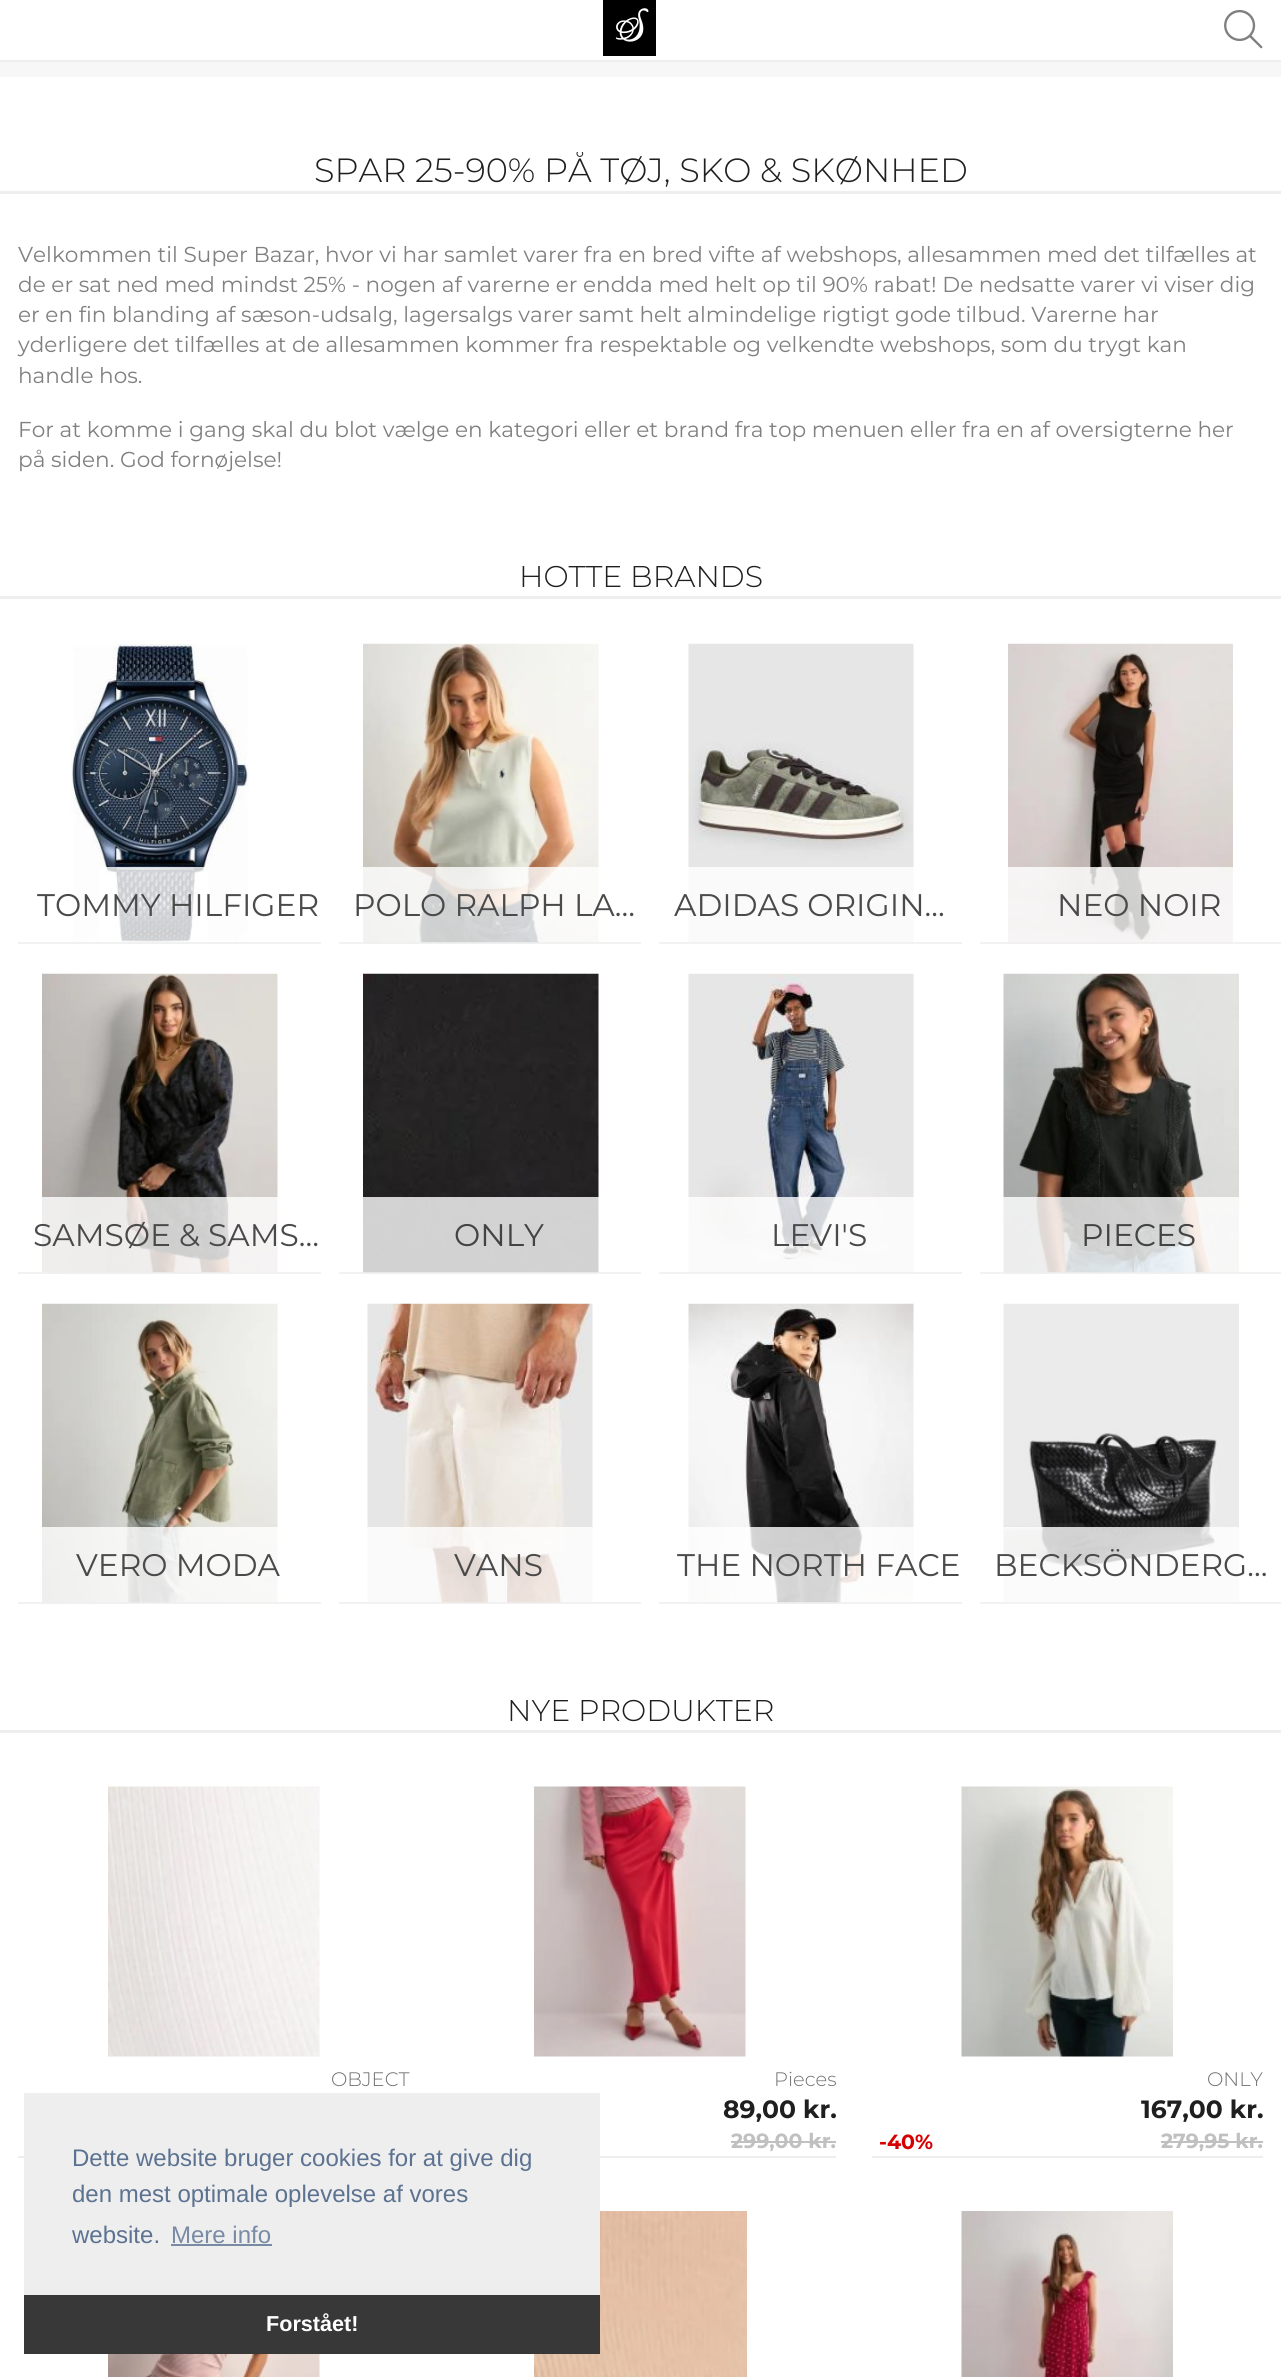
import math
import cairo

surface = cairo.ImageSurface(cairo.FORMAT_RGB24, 1281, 2377)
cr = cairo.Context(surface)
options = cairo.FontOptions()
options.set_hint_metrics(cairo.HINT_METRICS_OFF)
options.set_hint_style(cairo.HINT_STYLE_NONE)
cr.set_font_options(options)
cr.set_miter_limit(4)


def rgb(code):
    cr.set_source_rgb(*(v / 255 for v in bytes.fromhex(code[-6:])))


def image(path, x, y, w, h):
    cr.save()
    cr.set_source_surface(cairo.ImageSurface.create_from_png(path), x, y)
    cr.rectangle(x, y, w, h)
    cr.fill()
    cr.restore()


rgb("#f7f7f7")
cr.paint()
for x, y, w, h, color in [
    (0, 0, 1281, 60, "#ffffff"),
    (0, 60, 1281, 2, "#eeeeee"),
    (603, 0, 53, 56, "#000000"),
]:
    rgb(color)
    cr.rectangle(x, y, w, h)
    cr.fill()
image("img/1.png", 1224, 9, 39, 40)
for x, y, w, h, color in [
    (0, 77, 1281, 2300, "#ffffff"),
    (0, 191, 1281, 3, "#eeeeee"),
    (0, 596, 1281, 3, "#eeeeee"),
]:
    rgb(color)
    cr.rectangle(x, y, w, h)
    cr.fill()
image("img/2.png", 70, 643, 179, 299)
cr.set_source_rgba(1, 1, 1, 0.8)
cr.rectangle(99, 867, 109, 75)
cr.fill()
rgb("#f1f1f1")
cr.rectangle(18, 942, 303, 2)
cr.fill()
image("img/3.png", 363, 643, 236, 301)
cr.set_source_rgba(1, 1, 1, 0.8)
cr.rectangle(363, 867, 236, 77)
cr.fill()
cr.set_source_rgba(0.933, 0.933, 0.933, 0.8)
cr.rectangle(339, 942, 302, 2)
cr.fill()
image("img/4.png", 688, 643, 226, 301)
cr.set_source_rgba(1, 1, 1, 0.8)
cr.rectangle(688, 867, 226, 77)
cr.fill()
cr.set_source_rgba(0.933, 0.933, 0.933, 0.8)
cr.rectangle(659, 942, 303, 2)
cr.fill()
image("img/5.png", 1008, 643, 225, 301)
cr.set_source_rgba(1, 1, 1, 0.8)
cr.rectangle(1008, 867, 225, 77)
cr.fill()
cr.set_source_rgba(0.933, 0.933, 0.933, 0.8)
cr.rectangle(980, 942, 301, 2)
cr.fill()
image("img/6.png", 42, 973, 236, 301)
cr.set_source_rgba(1, 1, 1, 0.8)
cr.rectangle(42, 1197, 236, 77)
cr.fill()
cr.set_source_rgba(0.933, 0.933, 0.933, 0.8)
cr.rectangle(18, 1272, 303, 2)
cr.fill()
image("img/7.png", 363, 973, 236, 301)
cr.set_source_rgba(1, 1, 1, 0.8)
cr.rectangle(363, 1197, 236, 77)
cr.fill()
cr.set_source_rgba(0.933, 0.933, 0.933, 0.8)
cr.rectangle(339, 1272, 302, 2)
cr.fill()
image("img/8.png", 688, 973, 226, 301)
cr.set_source_rgba(1, 1, 1, 0.8)
cr.rectangle(688, 1197, 226, 77)
cr.fill()
cr.set_source_rgba(0.933, 0.933, 0.933, 0.8)
cr.rectangle(659, 1272, 303, 2)
cr.fill()
image("img/9.png", 1003, 973, 236, 301)
cr.set_source_rgba(1, 1, 1, 0.8)
cr.rectangle(1003, 1197, 236, 77)
cr.fill()
cr.set_source_rgba(0.933, 0.933, 0.933, 0.8)
cr.rectangle(980, 1272, 301, 2)
cr.fill()
image("img/10.png", 42, 1303, 236, 301)
cr.set_source_rgba(1, 1, 1, 0.8)
cr.rectangle(42, 1527, 236, 77)
cr.fill()
cr.set_source_rgba(0.933, 0.933, 0.933, 0.8)
cr.rectangle(18, 1602, 303, 2)
cr.fill()
image("img/11.png", 367, 1303, 226, 301)
cr.set_source_rgba(1, 1, 1, 0.8)
cr.rectangle(367, 1527, 226, 77)
cr.fill()
cr.set_source_rgba(0.933, 0.933, 0.933, 0.8)
cr.rectangle(339, 1602, 302, 2)
cr.fill()
image("img/12.png", 688, 1303, 226, 301)
cr.set_source_rgba(1, 1, 1, 0.8)
cr.rectangle(688, 1527, 226, 77)
cr.fill()
cr.set_source_rgba(0.933, 0.933, 0.933, 0.8)
cr.rectangle(659, 1602, 303, 2)
cr.fill()
image("img/13.png", 1003, 1303, 236, 301)
cr.set_source_rgba(1, 1, 1, 0.8)
cr.rectangle(1003, 1527, 236, 77)
cr.fill()
cr.set_source_rgba(0.933, 0.933, 0.933, 0.8)
cr.rectangle(980, 1602, 301, 2)
cr.fill()
rgb("#eeeeee")
cr.rectangle(0, 1730, 1281, 3)
cr.rectangle(18, 2156, 6, 2)
cr.fill()
image("img/14.png", 108, 1786, 212, 271)
cr.rectangle(600, 2156, 236, 2)
cr.fill()
image("img/15.png", 534, 1786, 212, 271)
rgb("#c0c0c0")
cr.rectangle(731, 2141, 105, 2)
cr.fill()
rgb("#eeeeee")
cr.rectangle(872, 2156, 391, 2)
cr.fill()
image("img/16.png", 961, 1786, 212, 271)
rgb("#c0c0c0")
cr.rectangle(1161, 2141, 102, 2)
cr.fill()
image("img/17.png", 108, 2354, 212, 23)
image("img/18.png", 534, 2211, 213, 166)
image("img/19.png", 961, 2211, 212, 166)
for x, y, w, h, color in [
    (24, 2093, 576, 202, "#eeeeee"),
    (171, 2244, 101, 2, "#798ba4"),
    (24, 2295, 576, 59, "#383838"),
]:
    rgb(color)
    cr.rectangle(x, y, w, h)
    cr.fill()
cr.select_font_face("Mea Culpa", cairo.FONT_SLANT_NORMAL, cairo.FONT_WEIGHT_BOLD)
cr.set_font_size(36)
rgb("#ffffff")
cr.move_to(615, 38)
cr.show_text("S")
cr.save()
cr.rectangle(0, 152, 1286, 39)
cr.clip()
cr.select_font_face("Montserrat Light")
cr.set_font_size(33.6)
rgb("#1f1f1f")
cr.move_to(314, 182)
cr.show_text("SPAR 25-90% PÅ TØJ, SKO & SKØNHED")
cr.restore()
cr.select_font_face("Montserrat")
cr.set_font_size(21.6)
rgb("#808080")
for x, y, s in [
    (18, 262, "Velkommen til Super Bazar, hvor vi har samlet varer fra en bred vifte af webshops, allesammen med det tilfælles at"),
    (18, 292, "de er sat ned med mindst 25% - nogen af varerne er endda med helt op til 90% rabat! De nedsatte varer vi viser dig"),
    (18, 322, "er en fin blanding af sæson-udsalg, lagersalgs varer samt helt almindelige rigtigt gode tilbud. Varerne har"),
    (18, 352, "yderligere det tilfælles at de allesammen kommer fra respektable og velkendte webshops, som du trygt kan"),
    (18, 383, "handle hos."),
    (18, 437, "For at komme i gang skal du blot vælge en kategori eller et brand fra top menuen eller fra en af oversigterne her"),
    (18, 467, "på siden. God fornøjelse!"),
]:
    cr.move_to(x, y)
    cr.show_text(s)
cr.select_font_face("Montserrat Light")
cr.set_font_size(30)
rgb("#1f1f1f")
cr.move_to(519, 587)
cr.show_text("HOTTE BRANDS")
cr.select_font_face("Montserrat")
cr.set_font_size(31.25)
rgb("#4a4a4a")
for x, y, s in [
    (37, 916, "TOMMY HILFIGER"),
    (353, 916, "POLO RALPH LA…"),
    (674, 916, "ADIDAS ORIGIN…"),
    (1057, 916, "NEO NOIR"),
    (33, 1246, "SAMSØE & SAMS…"),
]:
    cr.move_to(x, y)
    cr.show_text(s)
rgb("#434343")
cr.move_to(454, 1246)
cr.show_text("ONLY")
rgb("#4a4a4a")
cr.move_to(771, 1246)
cr.show_text("LEVI'S")
rgb("#434343")
cr.move_to(1081, 1246)
cr.show_text("PIECES")
rgb("#4a4a4a")
for x, y, s in [
    (76, 1576, "VERO MODA"),
    (454, 1576, "VANS"),
    (677, 1576, "THE NORTH FACE"),
    (994, 1576, "BECKSÖNDERG…"),
]:
    cr.move_to(x, y)
    cr.show_text(s)
cr.select_font_face("Montserrat Light")
cr.set_font_size(30)
rgb("#1f1f1f")
cr.move_to(507, 1721)
cr.show_text("NYE PRODUKTER")
cr.set_font_size(19.5)
rgb("#717171")
cr.move_to(331, 2086)
cr.show_text("OBJECT")
cr.move_to(774, 2086)
cr.show_text("Pieces")
cr.select_font_face("Montserrat", cairo.FONT_SLANT_NORMAL, cairo.FONT_WEIGHT_BOLD)
cr.set_font_size(25)
rgb("#1f1f1f")
cr.move_to(723, 2118)
cr.show_text("89,00 kr.")
cr.set_font_size(20.5)
rgb("#c0c0c0")
cr.move_to(731, 2148)
cr.show_text("299,00 kr.")
cr.select_font_face("Montserrat Light")
cr.set_font_size(19.5)
rgb("#717171")
cr.move_to(1207, 2086)
cr.show_text("ONLY")
cr.select_font_face("Montserrat", cairo.FONT_SLANT_NORMAL, cairo.FONT_WEIGHT_BOLD)
cr.set_font_size(25)
rgb("#1f1f1f")
cr.move_to(1141, 2118)
cr.show_text("167,00 kr.")
cr.set_font_size(20.5)
rgb("#d60000")
cr.move_to(879, 2149)
cr.show_text("-40%")
rgb("#c0c0c0")
cr.move_to(1161, 2148)
cr.show_text("279,95 kr.")
cr.select_font_face("Liberation Sans")
cr.set_font_size(24)
rgb("#5c7291")
for x, y, s in [
    (72, 2166, "Dette website bruger cookies for at give dig"),
    (72, 2202, "den mest optimale oplevelse af vores"),
    (72, 2243, "website."),
]:
    cr.move_to(x, y)
    cr.show_text(s)
rgb("#798ba4")
cr.move_to(171, 2243)
cr.show_text("Mere info")
cr.select_font_face("Liberation Sans", cairo.FONT_SLANT_NORMAL, cairo.FONT_WEIGHT_BOLD)
cr.set_font_size(21.6)
rgb("#ffffff")
cr.move_to(266, 2331)
cr.show_text("Forstået!")
surface.write_to_png("page.png")
